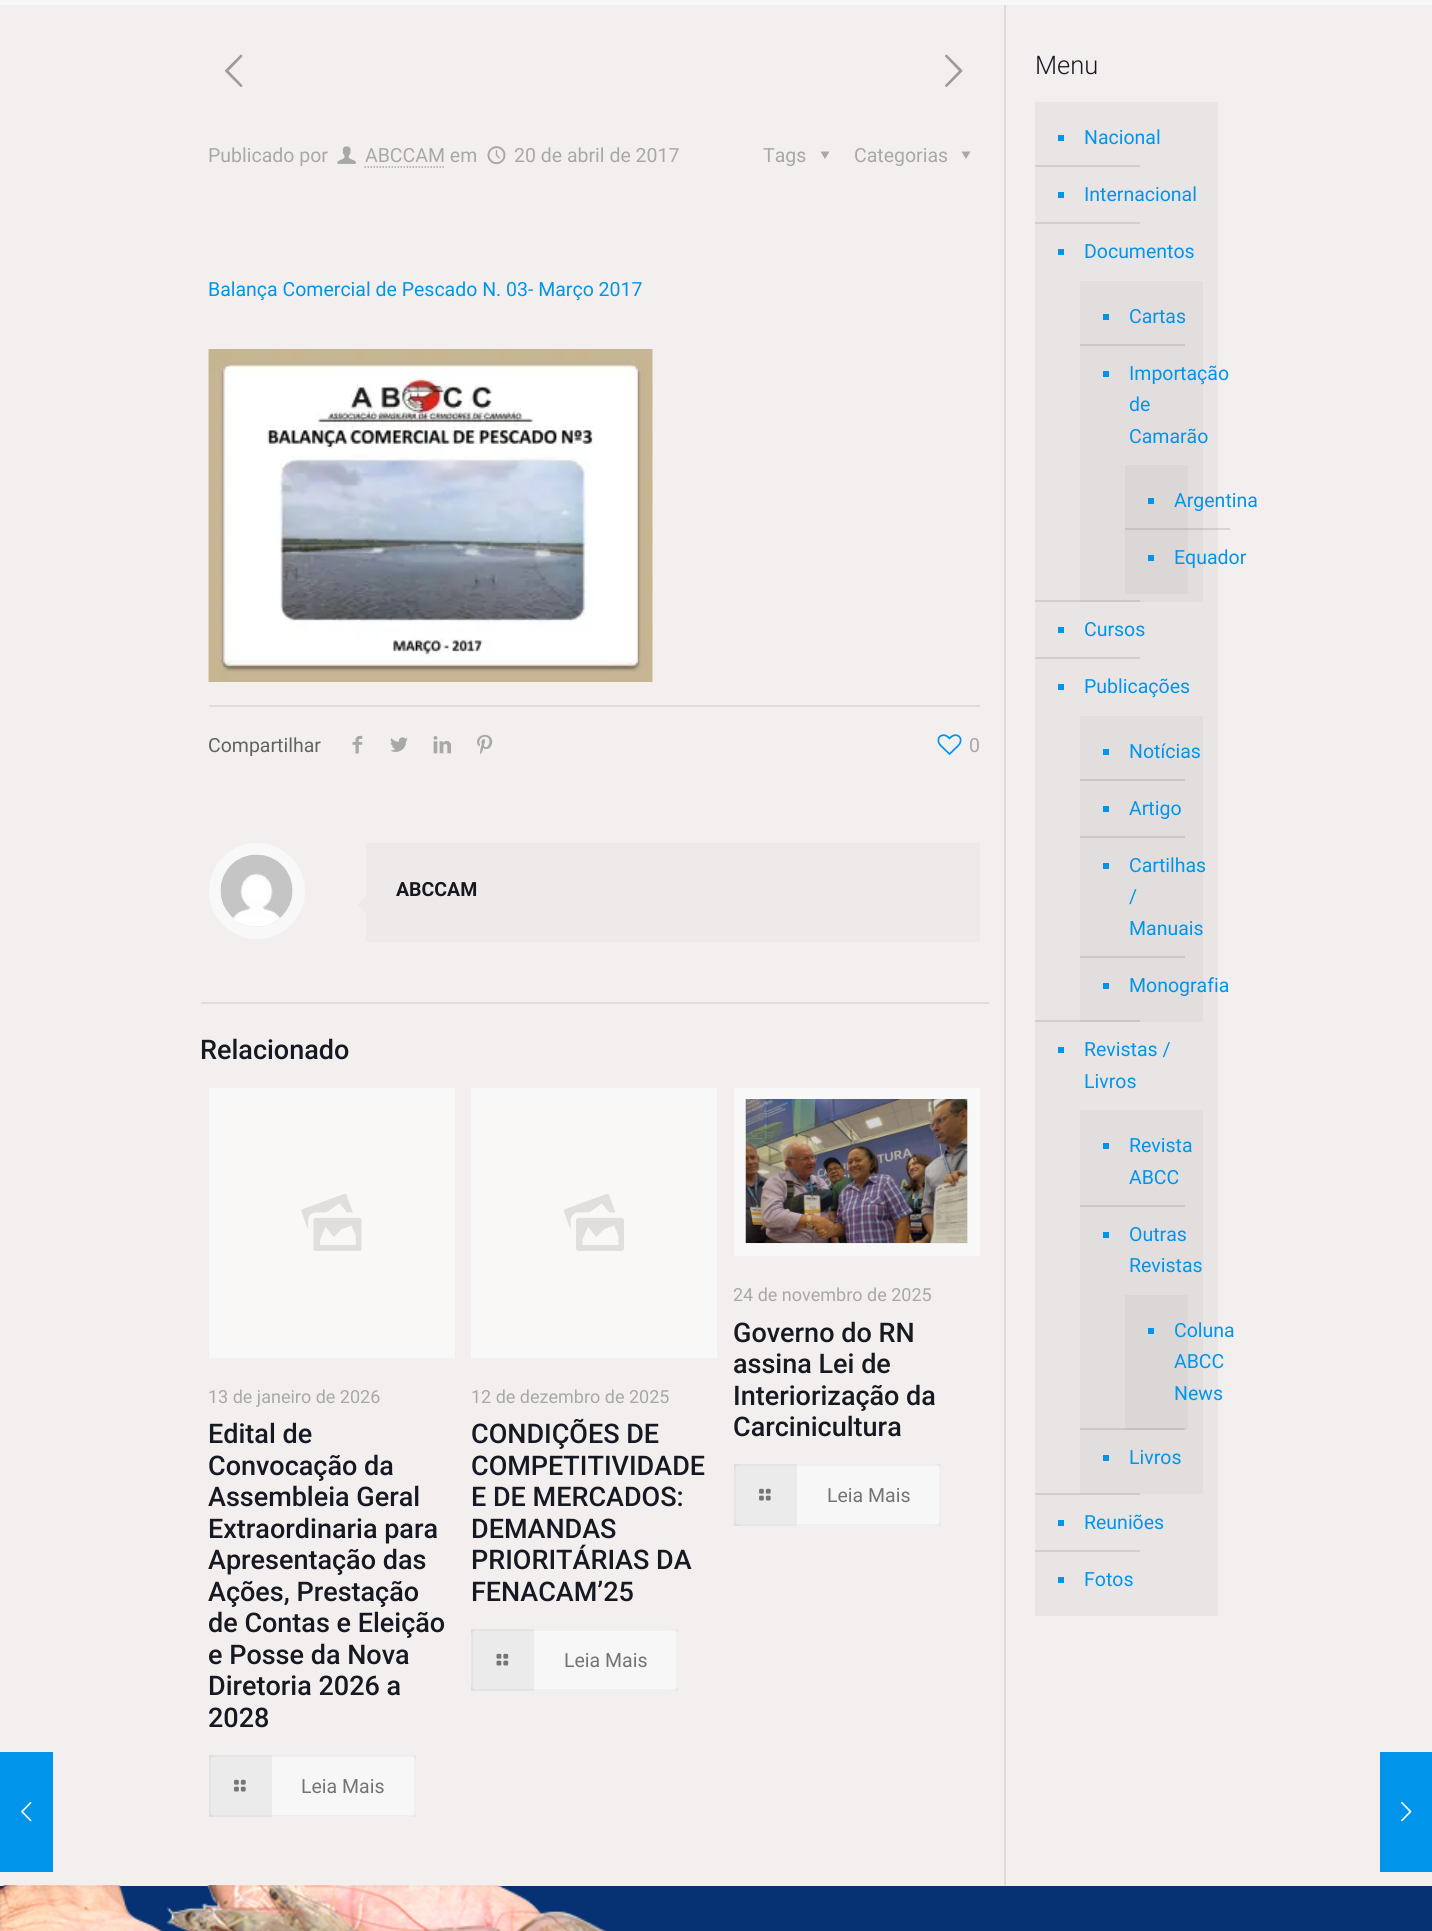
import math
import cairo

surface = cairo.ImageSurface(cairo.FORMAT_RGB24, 1432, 1931)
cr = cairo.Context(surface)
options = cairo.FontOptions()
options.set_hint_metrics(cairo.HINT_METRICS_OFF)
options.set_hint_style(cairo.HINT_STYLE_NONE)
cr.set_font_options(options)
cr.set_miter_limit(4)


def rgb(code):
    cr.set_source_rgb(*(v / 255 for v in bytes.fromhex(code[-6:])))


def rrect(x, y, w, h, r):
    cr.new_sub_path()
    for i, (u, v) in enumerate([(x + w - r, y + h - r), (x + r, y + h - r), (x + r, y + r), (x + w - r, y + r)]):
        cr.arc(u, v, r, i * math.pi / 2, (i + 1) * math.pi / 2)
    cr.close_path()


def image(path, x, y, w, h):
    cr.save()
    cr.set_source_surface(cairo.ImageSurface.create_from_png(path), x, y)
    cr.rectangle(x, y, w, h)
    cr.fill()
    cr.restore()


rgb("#f4efef")
cr.paint()
rgb("#dad5d5")
cr.rectangle(1218, 528, 12, 2)
cr.fill()
rgb("#f7f7f7")
cr.rectangle(0, 0, 1432, 5)
cr.fill()
image("img/1.png", 225, 54, 18, 33)
image("img/2.png", 945, 54, 18, 33)
image("img/3.png", 337, 146, 19, 18)
cr.new_path()
cr.move_to(364.5, 167)
cr.line_to(445.5, 167)
rgb("#a8a8a8")
cr.set_line_width(1.5)
cr.set_dash([1.5, 1.5])
cr.stroke()
image("img/4.png", 487, 146, 19, 19)
cr.new_path()
cr.move_to(829.5, 151.5)
cr.line_to(825, 159)
cr.line_to(820.5, 151.5)
cr.close_path()
cr.fill()
cr.new_path()
cr.move_to(970.5, 151.5)
cr.line_to(966, 159)
cr.line_to(961.5, 151.5)
cr.close_path()
cr.fill()
image("img/5.png", 208, 349, 445, 333)
rgb("#e0dcdc")
cr.rectangle(209, 705, 771, 2)
cr.fill()
image("img/6.png", 352, 735, 11, 19)
image("img/7.png", 390, 737, 18, 15)
image("img/8.png", 433, 736, 18, 18)
image("img/9.png", 477, 734, 16, 21)
image("img/10.png", 937, 734, 25, 21)
cr.arc(257, 891, 42, 0, 2 * math.pi)
rgb("#f8f8f8")
cr.set_line_width(12)
cr.set_dash([])
cr.stroke()
image("img/11.png", 220, 854, 73, 72)
rgb("#efeaea")
cr.rectangle(366, 843, 614, 99)
cr.fill()
cr.new_path()
cr.move_to(366, 895.5)
cr.line_to(366, 913.5)
cr.line_to(357, 904.5)
cr.close_path()
cr.fill()
rgb("#e0dcdc")
cr.rectangle(201, 1002, 788, 2)
cr.fill()
rgb("#faf7f7")
cr.rectangle(215, 1094, 234, 258)
cr.fill_preserve()
rgb("#f8f8f8")
cr.stroke()
image("img/12.png", 301, 1194, 61, 57)
rgb("#f7f7f7")
rrect(209, 1755, 207, 62, 8)
cr.fill()
cr.rectangle(210, 1756, 205, 60)
cr.set_source_rgba(0, 0, 0, 0.03)
cr.set_line_width(2)
cr.stroke()
image("img/13.png", 234, 1779, 12, 13)
cr.set_source_rgba(0, 0, 0, 0.05)
cr.rectangle(209, 1755, 63, 62)
cr.fill()
rgb("#faf7f7")
cr.rectangle(477, 1094, 234, 258)
cr.fill_preserve()
rgb("#f8f8f8")
cr.set_line_width(12)
cr.stroke()
image("img/14.png", 564, 1194, 60, 57)
rgb("#f7f7f7")
rrect(471, 1629, 207, 62, 8)
cr.fill()
cr.rectangle(472, 1630, 205, 60)
cr.set_source_rgba(0, 0, 0, 0.03)
cr.set_line_width(2)
cr.stroke()
image("img/15.png", 496, 1653, 13, 13)
cr.set_source_rgba(0, 0, 0, 0.05)
cr.rectangle(471, 1629, 63, 62)
cr.fill()
cr.rectangle(740, 1094, 234, 156)
rgb("#f8f8f8")
cr.set_line_width(12)
cr.stroke()
image("img/16.png", 745, 1099, 223, 144)
rgb("#f7f7f7")
rrect(734, 1464, 207, 62, 8)
cr.fill()
cr.rectangle(735, 1465, 205, 60)
cr.set_source_rgba(0, 0, 0, 0.03)
cr.set_line_width(2)
cr.stroke()
image("img/13.png", 759, 1488, 12, 13)
cr.set_source_rgba(0, 0, 0, 0.05)
cr.rectangle(734, 1464, 63, 62)
cr.fill()
rgb("#e0dcdc")
cr.rectangle(1004, 5, 1, 1881)
cr.fill()
rgb("#dedada")
cr.rectangle(1005, 5, 1, 1881)
cr.fill()
rgb("#eae5e5")
cr.rectangle(1035, 102, 183, 1514)
cr.fill()
rgb("#d3cece")
cr.rectangle(1035, 1493, 105, 2)
cr.rectangle(1035, 1020, 45, 2)
cr.rectangle(1035, 600, 45, 2)
cr.rectangle(1203, 528, 15, 2)
cr.fill()
rgb("#0095eb")
cr.rectangle(1058, 135, 6, 6)
cr.fill()
rgb("#d3cece")
cr.rectangle(1035, 165, 105, 2)
cr.fill()
rgb("#0095eb")
cr.rectangle(1058, 192, 6, 6)
cr.fill()
rgb("#d3cece")
cr.rectangle(1035, 222, 105, 2)
cr.fill()
rgb("#0095eb")
cr.rectangle(1058, 249, 6, 6)
cr.fill()
rgb("#e3dede")
cr.rectangle(1080, 281, 123, 321)
cr.fill()
rgb("#ccc8c8")
cr.rectangle(1080, 600, 60, 2)
cr.rectangle(1188, 528, 15, 2)
cr.fill()
rgb("#0095eb")
cr.rectangle(1103, 314, 6, 6)
cr.fill()
rgb("#ccc8c8")
cr.rectangle(1080, 344, 105, 2)
cr.fill()
rgb("#0095eb")
cr.rectangle(1103, 371, 6, 6)
cr.fill()
rgb("#dcd7d7")
cr.rectangle(1125, 465, 63, 129)
cr.fill()
rgb("#c6c2c2")
cr.rectangle(1125, 528, 63, 2)
cr.fill()
rgb("#0095eb")
cr.rectangle(1148, 498, 6, 6)
cr.rectangle(1148, 555, 6, 6)
cr.rectangle(1058, 627, 6, 6)
cr.fill()
rgb("#d3cece")
cr.rectangle(1035, 657, 105, 2)
cr.fill()
rgb("#0095eb")
cr.rectangle(1058, 684, 6, 6)
cr.fill()
rgb("#e3dede")
cr.rectangle(1080, 716, 123, 306)
cr.fill()
rgb("#ccc8c8")
cr.rectangle(1080, 1020, 60, 2)
cr.fill()
rgb("#0095eb")
cr.rectangle(1103, 749, 6, 6)
cr.fill()
rgb("#ccc8c8")
cr.rectangle(1080, 779, 105, 2)
cr.fill()
rgb("#0095eb")
cr.rectangle(1103, 806, 6, 6)
cr.fill()
rgb("#ccc8c8")
cr.rectangle(1080, 836, 105, 2)
cr.fill()
rgb("#0095eb")
cr.rectangle(1103, 863, 6, 6)
cr.fill()
rgb("#ccc8c8")
cr.rectangle(1080, 956, 105, 2)
cr.fill()
rgb("#0095eb")
cr.rectangle(1103, 983, 6, 6)
cr.rectangle(1058, 1047, 6, 6)
cr.fill()
rgb("#e3dede")
cr.rectangle(1080, 1110, 123, 384)
cr.fill()
rgb("#ccc8c8")
cr.rectangle(1080, 1493, 60, 1)
cr.rectangle(1080, 1428, 45, 2)
cr.fill()
rgb("#0095eb")
cr.rectangle(1103, 1143, 6, 6)
cr.fill()
rgb("#ccc8c8")
cr.rectangle(1080, 1205, 105, 2)
cr.fill()
rgb("#0095eb")
cr.rectangle(1103, 1232, 6, 6)
cr.fill()
rgb("#dcd7d7")
cr.rectangle(1125, 1295, 63, 135)
cr.fill()
rgb("#c6c2c2")
cr.rectangle(1125, 1428, 60, 2)
cr.fill()
rgb("#0095eb")
cr.rectangle(1148, 1328, 6, 6)
cr.rectangle(1103, 1455, 6, 6)
cr.rectangle(1058, 1520, 6, 6)
cr.fill()
rgb("#d3cece")
cr.rectangle(1035, 1550, 105, 2)
cr.fill()
rgb("#0095eb")
cr.rectangle(1058, 1577, 6, 6)
cr.fill()
rgb("#063173")
cr.rectangle(0, 1886, 1432, 45)
cr.fill()
image("img/17.png", 0, 1885, 607, 46)
rgb("#0095eb")
cr.rectangle(0, 1752, 53, 120)
cr.fill()
image("img/18.png", 21, 1801, 11, 21)
cr.rectangle(1380, 1752, 52, 120)
cr.fill()
image("img/19.png", 1401, 1801, 11, 21)
cr.select_font_face("Roboto")
cr.set_font_size(19.5)
rgb("#a8a8a8")
for x, y, s in [
    (208, 162, "Publicado por"),
    (365, 162, "ABCCAM em"),
    (514, 162, "20 de abril de 2017"),
    (763, 162, "Tags"),
    (854, 162, "Categorias"),
]:
    cr.move_to(x, y)
    cr.show_text(s)
rgb("#0095eb")
cr.move_to(208, 296)
cr.show_text("Balança Comercial de Pescado N. 03- Março 2017")
rgb("#626262")
cr.move_to(208, 752)
cr.show_text("Compartilhar")
rgb("#a8a8a8")
cr.move_to(969, 752)
cr.show_text("0")
cr.select_font_face("Roboto", cairo.FONT_SLANT_NORMAL, cairo.FONT_WEIGHT_BOLD)
rgb("#161922")
cr.move_to(396, 896)
cr.show_text("ABCCAM")
cr.select_font_face("Roboto Medium")
cr.set_font_size(27)
cr.move_to(200, 1059)
cr.show_text("Relacionado")
cr.select_font_face("Roboto")
cr.set_font_size(18)
rgb("#a8a8a8")
cr.move_to(208, 1403)
cr.show_text("13 de janeiro de 2026")
cr.select_font_face("Roboto Medium")
cr.set_font_size(27)
rgb("#161922")
for x, y, s in [
    (208, 1443, "Edital de"),
    (208, 1475, "Convocação da"),
    (208, 1506, "Assembleia Geral"),
    (208, 1538, "Extraordinaria para"),
    (208, 1569, "Apresentação das"),
    (208, 1601, "Ações, Prestação"),
    (208, 1632, "de Contas e Eleição"),
    (208, 1664, "e Posse da Nova"),
    (208, 1695, "Diretoria 2026 a"),
    (208, 1727, "2028"),
]:
    cr.move_to(x, y)
    cr.show_text(s)
cr.select_font_face("Roboto")
cr.set_font_size(19.5)
rgb("#747474")
cr.move_to(301, 1793)
cr.show_text("Leia Mais")
cr.set_font_size(18)
rgb("#a8a8a8")
cr.move_to(471, 1403)
cr.show_text("12 de dezembro de 2025")
cr.select_font_face("Roboto Medium")
cr.set_font_size(27)
rgb("#161922")
for x, y, s in [
    (471, 1443, "CONDIÇÕES DE"),
    (471, 1475, "COMPETITIVIDADE"),
    (471, 1506, "E DE MERCADOS:"),
    (471, 1538, "DEMANDAS"),
    (471, 1569, "PRIORITÁRIAS DA"),
    (471, 1601, "FENACAM’25"),
]:
    cr.move_to(x, y)
    cr.show_text(s)
cr.select_font_face("Roboto")
cr.set_font_size(19.5)
rgb("#747474")
cr.move_to(564, 1667)
cr.show_text("Leia Mais")
cr.set_font_size(18)
rgb("#a8a8a8")
cr.move_to(733, 1301)
cr.show_text("24 de novembro de 2025")
cr.select_font_face("Roboto Medium")
cr.set_font_size(27)
rgb("#161922")
for x, y, s in [
    (733, 1342, "Governo do RN"),
    (733, 1373, "assina Lei de"),
    (733, 1405, "Interiorização da"),
    (733, 1436, "Carcinicultura"),
]:
    cr.move_to(x, y)
    cr.show_text(s)
cr.select_font_face("Roboto")
cr.set_font_size(19.5)
rgb("#747474")
cr.move_to(827, 1502)
cr.show_text("Leia Mais")
cr.select_font_face("Roboto Light")
cr.set_font_size(25.5)
rgb("#161922")
cr.move_to(1035, 74)
cr.show_text("Menu")
cr.select_font_face("Roboto")
cr.set_font_size(19.5)
rgb("#0095eb")
for x, y, s in [
    (1084, 144, "Nacional"),
    (1084, 201, "Internacional"),
    (1084, 258, "Documentos"),
    (1129, 323, "Cartas"),
    (1129, 380, "Importação"),
    (1129, 411, "de"),
    (1129, 443, "Camarão"),
    (1174, 507, "Argentina"),
    (1174, 564, "Equador"),
    (1084, 636, "Cursos"),
    (1084, 693, "Publicações"),
    (1129, 758, "Notícias"),
    (1129, 815, "Artigo"),
    (1129, 872, "Cartilhas"),
    (1129, 903, "/"),
    (1129, 935, "Manuais"),
    (1129, 992, "Monografia"),
    (1084, 1056, "Revistas /"),
    (1084, 1088, "Livros"),
    (1129, 1152, "Revista"),
    (1129, 1184, "ABCC"),
    (1129, 1241, "Outras"),
    (1129, 1272, "Revistas"),
    (1174, 1337, "Coluna"),
    (1174, 1368, "ABCC"),
    (1174, 1400, "News"),
    (1129, 1464, "Livros"),
    (1084, 1529, "Reuniões"),
    (1084, 1586, "Fotos"),
]:
    cr.move_to(x, y)
    cr.show_text(s)
surface.write_to_png("page.png")
